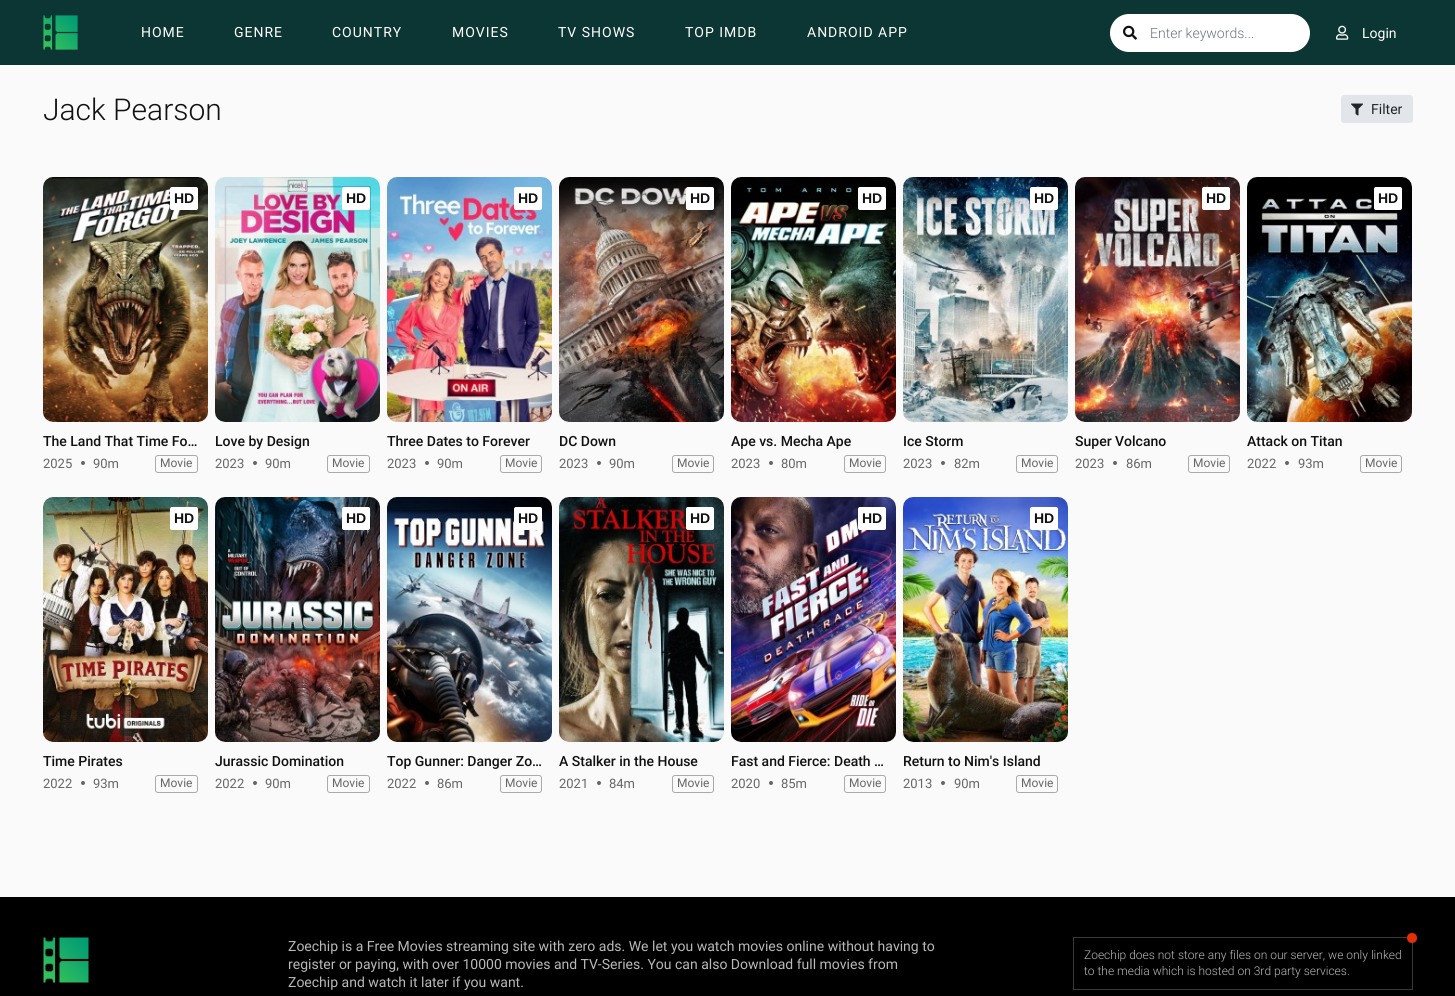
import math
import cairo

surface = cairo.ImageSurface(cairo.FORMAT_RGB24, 1455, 996)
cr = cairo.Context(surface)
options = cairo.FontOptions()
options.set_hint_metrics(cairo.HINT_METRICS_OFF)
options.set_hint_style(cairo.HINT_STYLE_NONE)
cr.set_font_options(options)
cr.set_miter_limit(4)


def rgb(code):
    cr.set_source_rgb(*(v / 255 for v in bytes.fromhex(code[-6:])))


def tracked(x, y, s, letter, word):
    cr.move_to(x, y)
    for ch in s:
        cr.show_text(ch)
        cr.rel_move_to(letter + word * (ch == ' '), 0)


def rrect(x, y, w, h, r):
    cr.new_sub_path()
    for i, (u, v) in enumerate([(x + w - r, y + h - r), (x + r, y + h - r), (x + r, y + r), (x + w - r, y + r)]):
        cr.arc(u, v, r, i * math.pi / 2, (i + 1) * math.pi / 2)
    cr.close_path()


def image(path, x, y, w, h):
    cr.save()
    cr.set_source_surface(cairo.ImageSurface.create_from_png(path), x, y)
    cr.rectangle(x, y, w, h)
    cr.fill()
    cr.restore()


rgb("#fafafa")
cr.paint()
rgb("#0c3633")
cr.rectangle(0, 0, 1455, 65)
cr.fill()
image("img/1.png", 43, 15, 35, 35)
rgb("#ffffff")
rrect(1110, 14, 200, 38, 19)
cr.fill()
image("img/2.png", 1123, 25, 14, 15)
image("img/3.png", 1336, 25, 13, 15)
rgb("#e2e6ea")
rrect(1341, 95, 72, 28, 3)
cr.fill()
image("img/4.png", 1351, 103, 12, 13)
image("img/5.png", 43, 177, 165, 245)
rgb("#ffffff")
rrect(170, 187, 28, 23, 2)
cr.fill()
rgb("#666666")
cr.arc(83, 463, 2, 0, 2 * math.pi)
cr.fill()
rrect(155.5, 455.5, 42, 17, 2.5)
rgb("#aaaaaa")
cr.set_line_width(1)
cr.stroke()
image("img/6.png", 215, 177, 165, 245)
rgb("#ffffff")
rrect(342, 187, 28, 23, 2)
cr.fill()
rgb("#666666")
cr.arc(255, 463, 2, 0, 2 * math.pi)
cr.fill()
rrect(327.5, 455.5, 42, 17, 2.5)
rgb("#aaaaaa")
cr.stroke()
image("img/7.png", 387, 177, 165, 245)
rgb("#ffffff")
rrect(514, 187, 28, 23, 2)
cr.fill()
rgb("#666666")
cr.arc(427, 463, 2, 0, 2 * math.pi)
cr.fill()
rrect(500.5, 455.5, 41, 17, 2.5)
rgb("#aaaaaa")
cr.stroke()
image("img/8.png", 559, 177, 165, 245)
rgb("#ffffff")
rrect(686, 187, 28, 23, 2)
cr.fill()
rgb("#666666")
cr.arc(599, 463, 2, 0, 2 * math.pi)
cr.fill()
rrect(672.5, 455.5, 41, 17, 2.5)
rgb("#aaaaaa")
cr.stroke()
image("img/9.png", 731, 177, 165, 245)
rgb("#ffffff")
rrect(858, 187, 28, 23, 2)
cr.fill()
rgb("#666666")
cr.arc(771, 463, 2, 0, 2 * math.pi)
cr.fill()
rrect(844.5, 455.5, 41, 17, 2.5)
rgb("#aaaaaa")
cr.stroke()
image("img/10.png", 903, 177, 165, 245)
rgb("#ffffff")
rrect(1030, 187, 28, 23, 2)
cr.fill()
rgb("#666666")
cr.arc(943, 463, 2, 0, 2 * math.pi)
cr.fill()
rrect(1016.5, 455.5, 41, 17, 2.5)
rgb("#aaaaaa")
cr.stroke()
image("img/11.png", 1075, 177, 165, 245)
rgb("#ffffff")
rrect(1202, 187, 28, 23, 2)
cr.fill()
rgb("#666666")
cr.arc(1115, 463, 2, 0, 2 * math.pi)
cr.fill()
rrect(1188.5, 455.5, 41, 17, 2.5)
rgb("#aaaaaa")
cr.stroke()
image("img/12.png", 1247, 177, 165, 245)
rgb("#ffffff")
rrect(1374, 187, 28, 23, 2)
cr.fill()
rgb("#666666")
cr.arc(1287, 463, 2, 0, 2 * math.pi)
cr.fill()
rrect(1360.5, 455.5, 41, 17, 2.5)
rgb("#aaaaaa")
cr.stroke()
image("img/13.png", 43, 497, 165, 245)
rgb("#ffffff")
rrect(170, 507, 28, 23, 2)
cr.fill()
rgb("#666666")
cr.arc(83, 783, 2, 0, 2 * math.pi)
cr.fill()
rrect(155.5, 775.5, 42, 17, 2.5)
rgb("#aaaaaa")
cr.stroke()
image("img/14.png", 215, 497, 165, 245)
rgb("#ffffff")
rrect(342, 507, 28, 23, 2)
cr.fill()
rgb("#666666")
cr.arc(255, 783, 2, 0, 2 * math.pi)
cr.fill()
rrect(327.5, 775.5, 42, 17, 2.5)
rgb("#aaaaaa")
cr.stroke()
image("img/15.png", 387, 497, 165, 245)
rgb("#ffffff")
rrect(514, 507, 28, 23, 2)
cr.fill()
rgb("#666666")
cr.arc(427, 783, 2, 0, 2 * math.pi)
cr.fill()
rrect(500.5, 775.5, 41, 17, 2.5)
rgb("#aaaaaa")
cr.stroke()
image("img/16.png", 559, 497, 165, 245)
rgb("#ffffff")
rrect(686, 507, 28, 23, 2)
cr.fill()
rgb("#666666")
cr.arc(599, 783, 2, 0, 2 * math.pi)
cr.fill()
rrect(672.5, 775.5, 41, 17, 2.5)
rgb("#aaaaaa")
cr.stroke()
image("img/17.png", 731, 497, 165, 245)
rgb("#ffffff")
rrect(858, 507, 28, 23, 2)
cr.fill()
rgb("#666666")
cr.arc(771, 783, 2, 0, 2 * math.pi)
cr.fill()
rrect(844.5, 775.5, 41, 17, 2.5)
rgb("#aaaaaa")
cr.stroke()
image("img/18.png", 903, 497, 165, 245)
rgb("#ffffff")
rrect(1030, 507, 28, 23, 2)
cr.fill()
rgb("#666666")
cr.arc(943, 783, 2, 0, 2 * math.pi)
cr.fill()
rrect(1016.5, 775.5, 41, 17, 2.5)
rgb("#aaaaaa")
cr.stroke()
rgb("#000000")
cr.rectangle(0, 897, 1455, 99)
cr.fill()
image("img/19.png", 43, 937, 46, 46)
cr.rectangle(1073.5, 937.5, 339, 52)
rgb("#393939")
cr.stroke()
rgb("#e62e05")
cr.arc(1412, 938, 5, 0, 2 * math.pi)
cr.fill()
cr.select_font_face("Roboto")
cr.set_font_size(14)
rgb("#ffffff")
for x, y, s in [
    (141, 37, "HOME"),
    (234, 37, "GENRE"),
    (332, 37, "COUNTRY"),
    (452, 37, "MOVIES"),
    (558, 37, "TV SHOWS"),
    (685, 37, "TOP IMDB"),
    (807, 37, "ANDROID APP"),
]:
    tracked(x, y, s, 1, 0)
cr.select_font_face("Roboto Light")
rgb("#6c757d")
cr.move_to(1150, 38)
cr.show_text("Enter keywords...")
cr.select_font_face("Roboto")
rgb("#ffffff")
cr.move_to(1362, 38)
cr.show_text("Login")
cr.select_font_face("Roboto Light")
cr.set_font_size(30)
rgb("#111111")
cr.move_to(43, 120)
cr.show_text("Jack Pearson")
cr.select_font_face("Roboto")
cr.set_font_size(14)
rgb("#212529")
cr.move_to(1371, 114)
cr.show_text("Filter")
cr.select_font_face("Liberation Sans", cairo.FONT_SLANT_NORMAL, cairo.FONT_WEIGHT_BOLD)
rgb("#111111")
cr.move_to(174, 203)
cr.show_text("HD")
cr.select_font_face("Roboto Medium")
cr.move_to(43, 446)
cr.show_text("The Land That Time Fo…")
cr.select_font_face("Roboto")
cr.set_font_size(13)
rgb("#666666")
cr.move_to(43, 468)
cr.show_text("2025")
cr.move_to(93, 468)
cr.show_text("90m")
cr.set_font_size(12)
cr.move_to(160, 467)
cr.show_text("Movie")
cr.select_font_face("Liberation Sans", cairo.FONT_SLANT_NORMAL, cairo.FONT_WEIGHT_BOLD)
cr.set_font_size(14)
rgb("#111111")
cr.move_to(346, 203)
cr.show_text("HD")
cr.select_font_face("Roboto Medium")
cr.move_to(215, 446)
cr.show_text("Love by Design")
cr.select_font_face("Roboto")
cr.set_font_size(13)
rgb("#666666")
cr.move_to(215, 468)
cr.show_text("2023")
cr.move_to(265, 468)
cr.show_text("90m")
cr.set_font_size(12)
cr.move_to(332, 467)
cr.show_text("Movie")
cr.select_font_face("Liberation Sans", cairo.FONT_SLANT_NORMAL, cairo.FONT_WEIGHT_BOLD)
cr.set_font_size(14)
rgb("#111111")
cr.move_to(518, 203)
cr.show_text("HD")
cr.select_font_face("Roboto Medium")
cr.move_to(387, 446)
cr.show_text("Three Dates to Forever")
cr.select_font_face("Roboto")
cr.set_font_size(13)
rgb("#666666")
cr.move_to(387, 468)
cr.show_text("2023")
cr.move_to(437, 468)
cr.show_text("90m")
cr.set_font_size(12)
cr.move_to(505, 467)
cr.show_text("Movie")
cr.select_font_face("Liberation Sans", cairo.FONT_SLANT_NORMAL, cairo.FONT_WEIGHT_BOLD)
cr.set_font_size(14)
rgb("#111111")
cr.move_to(690, 203)
cr.show_text("HD")
cr.select_font_face("Roboto Medium")
cr.move_to(559, 446)
cr.show_text("DC Down")
cr.select_font_face("Roboto")
cr.set_font_size(13)
rgb("#666666")
cr.move_to(559, 468)
cr.show_text("2023")
cr.move_to(609, 468)
cr.show_text("90m")
cr.set_font_size(12)
cr.move_to(677, 467)
cr.show_text("Movie")
cr.select_font_face("Liberation Sans", cairo.FONT_SLANT_NORMAL, cairo.FONT_WEIGHT_BOLD)
cr.set_font_size(14)
rgb("#111111")
cr.move_to(862, 203)
cr.show_text("HD")
cr.select_font_face("Roboto Medium")
cr.move_to(731, 446)
cr.show_text("Ape vs. Mecha Ape")
cr.select_font_face("Roboto")
cr.set_font_size(13)
rgb("#666666")
cr.move_to(731, 468)
cr.show_text("2023")
cr.move_to(781, 468)
cr.show_text("80m")
cr.set_font_size(12)
cr.move_to(849, 467)
cr.show_text("Movie")
cr.select_font_face("Liberation Sans", cairo.FONT_SLANT_NORMAL, cairo.FONT_WEIGHT_BOLD)
cr.set_font_size(14)
rgb("#111111")
cr.move_to(1034, 203)
cr.show_text("HD")
cr.select_font_face("Roboto Medium")
cr.move_to(903, 446)
cr.show_text("Ice Storm")
cr.select_font_face("Roboto")
cr.set_font_size(13)
rgb("#666666")
cr.move_to(903, 468)
cr.show_text("2023")
cr.move_to(954, 468)
cr.show_text("82m")
cr.set_font_size(12)
cr.move_to(1021, 467)
cr.show_text("Movie")
cr.select_font_face("Liberation Sans", cairo.FONT_SLANT_NORMAL, cairo.FONT_WEIGHT_BOLD)
cr.set_font_size(14)
rgb("#111111")
cr.move_to(1206, 203)
cr.show_text("HD")
cr.select_font_face("Roboto Medium")
cr.move_to(1075, 446)
cr.show_text("Super Volcano")
cr.select_font_face("Roboto")
cr.set_font_size(13)
rgb("#666666")
cr.move_to(1075, 468)
cr.show_text("2023")
cr.move_to(1126, 468)
cr.show_text("86m")
cr.set_font_size(12)
cr.move_to(1193, 467)
cr.show_text("Movie")
cr.select_font_face("Liberation Sans", cairo.FONT_SLANT_NORMAL, cairo.FONT_WEIGHT_BOLD)
cr.set_font_size(14)
rgb("#111111")
cr.move_to(1378, 203)
cr.show_text("HD")
cr.select_font_face("Roboto Medium")
cr.move_to(1247, 446)
cr.show_text("Attack on Titan")
cr.select_font_face("Roboto")
cr.set_font_size(13)
rgb("#666666")
cr.move_to(1247, 468)
cr.show_text("2022")
cr.move_to(1298, 468)
cr.show_text("93m")
cr.set_font_size(12)
cr.move_to(1365, 467)
cr.show_text("Movie")
cr.select_font_face("Liberation Sans", cairo.FONT_SLANT_NORMAL, cairo.FONT_WEIGHT_BOLD)
cr.set_font_size(14)
rgb("#111111")
cr.move_to(174, 523)
cr.show_text("HD")
cr.select_font_face("Roboto Medium")
cr.move_to(43, 766)
cr.show_text("Time Pirates")
cr.select_font_face("Roboto")
cr.set_font_size(13)
rgb("#666666")
cr.move_to(43, 788)
cr.show_text("2022")
cr.move_to(93, 788)
cr.show_text("93m")
cr.set_font_size(12)
cr.move_to(160, 787)
cr.show_text("Movie")
cr.select_font_face("Liberation Sans", cairo.FONT_SLANT_NORMAL, cairo.FONT_WEIGHT_BOLD)
cr.set_font_size(14)
rgb("#111111")
cr.move_to(346, 523)
cr.show_text("HD")
cr.select_font_face("Roboto Medium")
cr.move_to(215, 766)
cr.show_text("Jurassic Domination")
cr.select_font_face("Roboto")
cr.set_font_size(13)
rgb("#666666")
cr.move_to(215, 788)
cr.show_text("2022")
cr.move_to(265, 788)
cr.show_text("90m")
cr.set_font_size(12)
cr.move_to(332, 787)
cr.show_text("Movie")
cr.select_font_face("Liberation Sans", cairo.FONT_SLANT_NORMAL, cairo.FONT_WEIGHT_BOLD)
cr.set_font_size(14)
rgb("#111111")
cr.move_to(518, 523)
cr.show_text("HD")
cr.select_font_face("Roboto Medium")
cr.move_to(387, 766)
cr.show_text("Top Gunner: Danger Zo…")
cr.select_font_face("Roboto")
cr.set_font_size(13)
rgb("#666666")
cr.move_to(387, 788)
cr.show_text("2022")
cr.move_to(437, 788)
cr.show_text("86m")
cr.set_font_size(12)
cr.move_to(505, 787)
cr.show_text("Movie")
cr.select_font_face("Liberation Sans", cairo.FONT_SLANT_NORMAL, cairo.FONT_WEIGHT_BOLD)
cr.set_font_size(14)
rgb("#111111")
cr.move_to(690, 523)
cr.show_text("HD")
cr.select_font_face("Roboto Medium")
cr.move_to(559, 766)
cr.show_text("A Stalker in the House")
cr.select_font_face("Roboto")
cr.set_font_size(13)
rgb("#666666")
cr.move_to(559, 788)
cr.show_text("2021")
cr.move_to(609, 788)
cr.show_text("84m")
cr.set_font_size(12)
cr.move_to(677, 787)
cr.show_text("Movie")
cr.select_font_face("Liberation Sans", cairo.FONT_SLANT_NORMAL, cairo.FONT_WEIGHT_BOLD)
cr.set_font_size(14)
rgb("#111111")
cr.move_to(862, 523)
cr.show_text("HD")
cr.select_font_face("Roboto Medium")
cr.move_to(731, 766)
cr.show_text("Fast and Fierce: Death …")
cr.select_font_face("Roboto")
cr.set_font_size(13)
rgb("#666666")
cr.move_to(731, 788)
cr.show_text("2020")
cr.move_to(781, 788)
cr.show_text("85m")
cr.set_font_size(12)
cr.move_to(849, 787)
cr.show_text("Movie")
cr.select_font_face("Liberation Sans", cairo.FONT_SLANT_NORMAL, cairo.FONT_WEIGHT_BOLD)
cr.set_font_size(14)
rgb("#111111")
cr.move_to(1034, 523)
cr.show_text("HD")
cr.select_font_face("Roboto Medium")
cr.move_to(903, 766)
cr.show_text("Return to Nim's Island")
cr.select_font_face("Roboto")
cr.set_font_size(13)
rgb("#666666")
cr.move_to(903, 788)
cr.show_text("2013")
cr.move_to(954, 788)
cr.show_text("90m")
cr.set_font_size(12)
cr.move_to(1021, 787)
cr.show_text("Movie")
cr.set_font_size(14)
rgb("#b9b9b9")
for x, y, s in [
    (288, 951, "Zoechip is a Free Movies streaming site with zero ads. We let you watch movies online without having to"),
    (288, 969, "register or paying, with over 10000 movies and TV-Series. You can also Download full movies from"),
    (288, 987, "Zoechip and watch it later if you want."),
]:
    cr.move_to(x, y)
    cr.show_text(s)
cr.select_font_face("Roboto Light")
cr.set_font_size(12)
cr.move_to(1084, 959)
cr.show_text("Zoechip does not store any files on our server, we only linked")
cr.move_to(1084, 975)
cr.show_text("to the media which is hosted on 3rd party services.")
surface.write_to_png("page.png")
